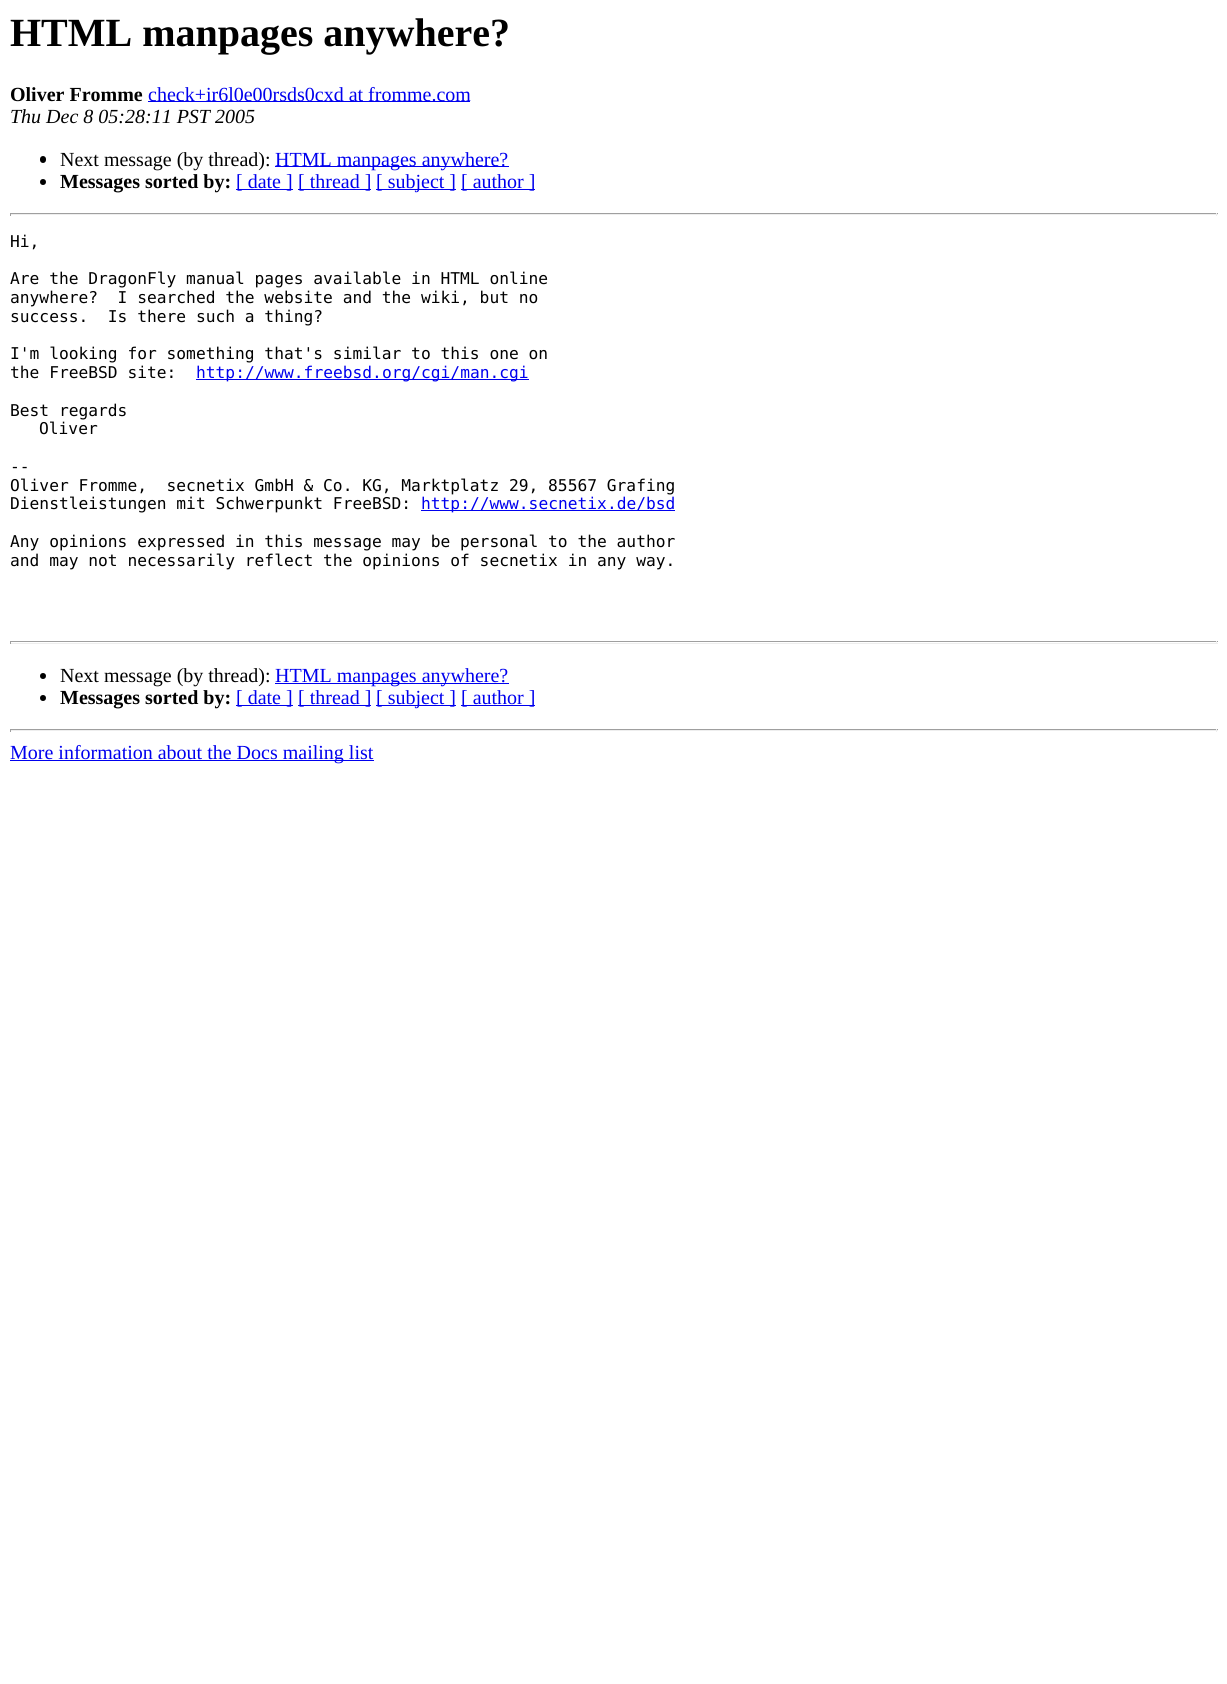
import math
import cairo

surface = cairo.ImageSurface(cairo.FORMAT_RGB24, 1227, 1684)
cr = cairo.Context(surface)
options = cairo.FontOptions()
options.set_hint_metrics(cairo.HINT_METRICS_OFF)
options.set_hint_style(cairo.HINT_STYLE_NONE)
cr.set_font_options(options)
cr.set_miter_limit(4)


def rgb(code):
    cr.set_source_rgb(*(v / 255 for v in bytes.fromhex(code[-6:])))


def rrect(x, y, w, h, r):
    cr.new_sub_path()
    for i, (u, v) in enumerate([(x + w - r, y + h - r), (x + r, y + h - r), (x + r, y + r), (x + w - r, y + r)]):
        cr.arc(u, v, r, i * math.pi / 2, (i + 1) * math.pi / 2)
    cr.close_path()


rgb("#ffffff")
cr.paint()
rgb("#0000ee")
cr.rectangle(148, 101, 322, 1)
cr.fill()
rgb("#000000")
rrect(40, 156, 6, 7, 3)
cr.fill()
rgb("#0000ee")
cr.rectangle(275, 166, 234, 1)
cr.fill()
rgb("#000000")
cr.arc(43, 182, 3, 0, 2 * math.pi)
cr.fill()
for x, y, w, h, color in [
    (236, 189, 57, 1, "#0000ee"),
    (298, 189, 73, 1, "#0000ee"),
    (376, 189, 80, 1, "#0000ee"),
    (461, 189, 74, 1, "#0000ee"),
    (10, 213, 1208, 1, "#9f9f9f"),
    (1216, 213, 1, 3, "#eeeeee"),
    (10, 214, 1208, 1, "#eeeeee"),
    (10, 213, 1, 3, "#9f9f9f"),
    (196, 379, 333, 1, "#0000ee"),
    (421, 510, 254, 1, "#0000ee"),
    (10, 641, 1208, 1, "#9f9f9f"),
    (1216, 641, 1, 3, "#eeeeee"),
    (10, 643, 1208, 1, "#eeeeee"),
    (10, 641, 1, 3, "#9f9f9f"),
]:
    rgb(color)
    cr.rectangle(x, y, w, h)
    cr.fill()
rgb("#000000")
cr.arc(43, 676, 3, 0, 2 * math.pi)
cr.fill()
rgb("#0000ee")
cr.rectangle(275, 683, 234, 1)
cr.fill()
rgb("#000000")
cr.arc(43, 698, 3, 0, 2 * math.pi)
cr.fill()
for x, y, w, h, color in [
    (236, 705, 57, 1, "#0000ee"),
    (298, 705, 73, 1, "#0000ee"),
    (376, 705, 80, 1, "#0000ee"),
    (461, 705, 74, 1, "#0000ee"),
    (10, 729, 1208, 1, "#9f9f9f"),
    (1216, 729, 1, 3, "#eeeeee"),
    (10, 730, 1208, 1, "#eeeeee"),
    (10, 729, 1, 3, "#9f9f9f"),
    (10, 760, 364, 1, "#0000ee"),
]:
    rgb(color)
    cr.rectangle(x, y, w, h)
    cr.fill()
cr.select_font_face("Liberation Serif", cairo.FONT_SLANT_NORMAL, cairo.FONT_WEIGHT_BOLD)
cr.set_font_size(40)
rgb("#000000")
cr.move_to(10, 46)
cr.show_text("HTML manpages anywhere?")
cr.set_font_size(20)
cr.move_to(10, 101)
cr.show_text("Oliver Fromme")
cr.select_font_face("Liberation Serif")
rgb("#0000ee")
cr.move_to(148, 101)
cr.show_text("check+ir6l0e00rsds0cxd at fromme.com")
cr.select_font_face("Liberation Serif", cairo.FONT_SLANT_ITALIC)
rgb("#000000")
cr.move_to(10, 123)
cr.show_text("Thu Dec 8 05:28:11 PST 2005")
cr.select_font_face("Liberation Serif")
cr.move_to(60, 166)
cr.show_text("Next message (by thread):")
rgb("#0000ee")
cr.move_to(275, 166)
cr.show_text("HTML manpages anywhere?")
cr.select_font_face("Liberation Serif", cairo.FONT_SLANT_NORMAL, cairo.FONT_WEIGHT_BOLD)
rgb("#000000")
cr.move_to(60, 188)
cr.show_text("Messages sorted by:")
cr.select_font_face("Liberation Serif")
rgb("#0000ee")
for x, y, s in [
    (236, 188, "[ date ]"),
    (298, 188, "[ thread ]"),
    (376, 188, "[ subject ]"),
    (461, 188, "[ author ]"),
]:
    cr.move_to(x, y)
    cr.show_text(s)
cr.select_font_face("DejaVu Sans Mono")
cr.set_font_size(16.25)
rgb("#000000")
for x, y, s in [
    (10, 247, "Hi,"),
    (10, 284, "Are the DragonFly manual pages available in HTML online"),
    (10, 303, "anywhere?  I searched the website and the wiki, but no"),
    (10, 322, "success.  Is there such a thing?"),
    (10, 359, "I'm looking for something that's similar to this one on"),
    (10, 378, "the FreeBSD site:"),
]:
    cr.move_to(x, y)
    cr.show_text(s)
rgb("#0000ee")
cr.move_to(196, 378)
cr.show_text("http://www.freebsd.org/cgi/man.cgi")
rgb("#000000")
for x, y, s in [
    (10, 416, "Best regards"),
    (39, 434, "Oliver"),
    (10, 472, "--"),
    (10, 491, "Oliver Fromme,  secnetix GmbH & Co. KG, Marktplatz 29, 85567 Grafing"),
    (10, 509, "Dienstleistungen mit Schwerpunkt FreeBSD:"),
]:
    cr.move_to(x, y)
    cr.show_text(s)
rgb("#0000ee")
cr.move_to(421, 509)
cr.show_text("http://www.secnetix.de/bsd")
rgb("#000000")
cr.move_to(10, 547)
cr.show_text("Any opinions expressed in this message may be personal to the author")
cr.move_to(10, 566)
cr.show_text("and may not necessarily reflect the opinions of secnetix in any way.")
cr.select_font_face("Liberation Serif")
cr.set_font_size(20)
cr.move_to(60, 682)
cr.show_text("Next message (by thread):")
rgb("#0000ee")
cr.move_to(275, 682)
cr.show_text("HTML manpages anywhere?")
cr.select_font_face("Liberation Serif", cairo.FONT_SLANT_NORMAL, cairo.FONT_WEIGHT_BOLD)
rgb("#000000")
cr.move_to(60, 704)
cr.show_text("Messages sorted by:")
cr.select_font_face("Liberation Serif")
rgb("#0000ee")
for x, y, s in [
    (236, 704, "[ date ]"),
    (298, 704, "[ thread ]"),
    (376, 704, "[ subject ]"),
    (461, 704, "[ author ]"),
    (10, 759, "More information about the Docs mailing list"),
]:
    cr.move_to(x, y)
    cr.show_text(s)
surface.write_to_png("page.png")
